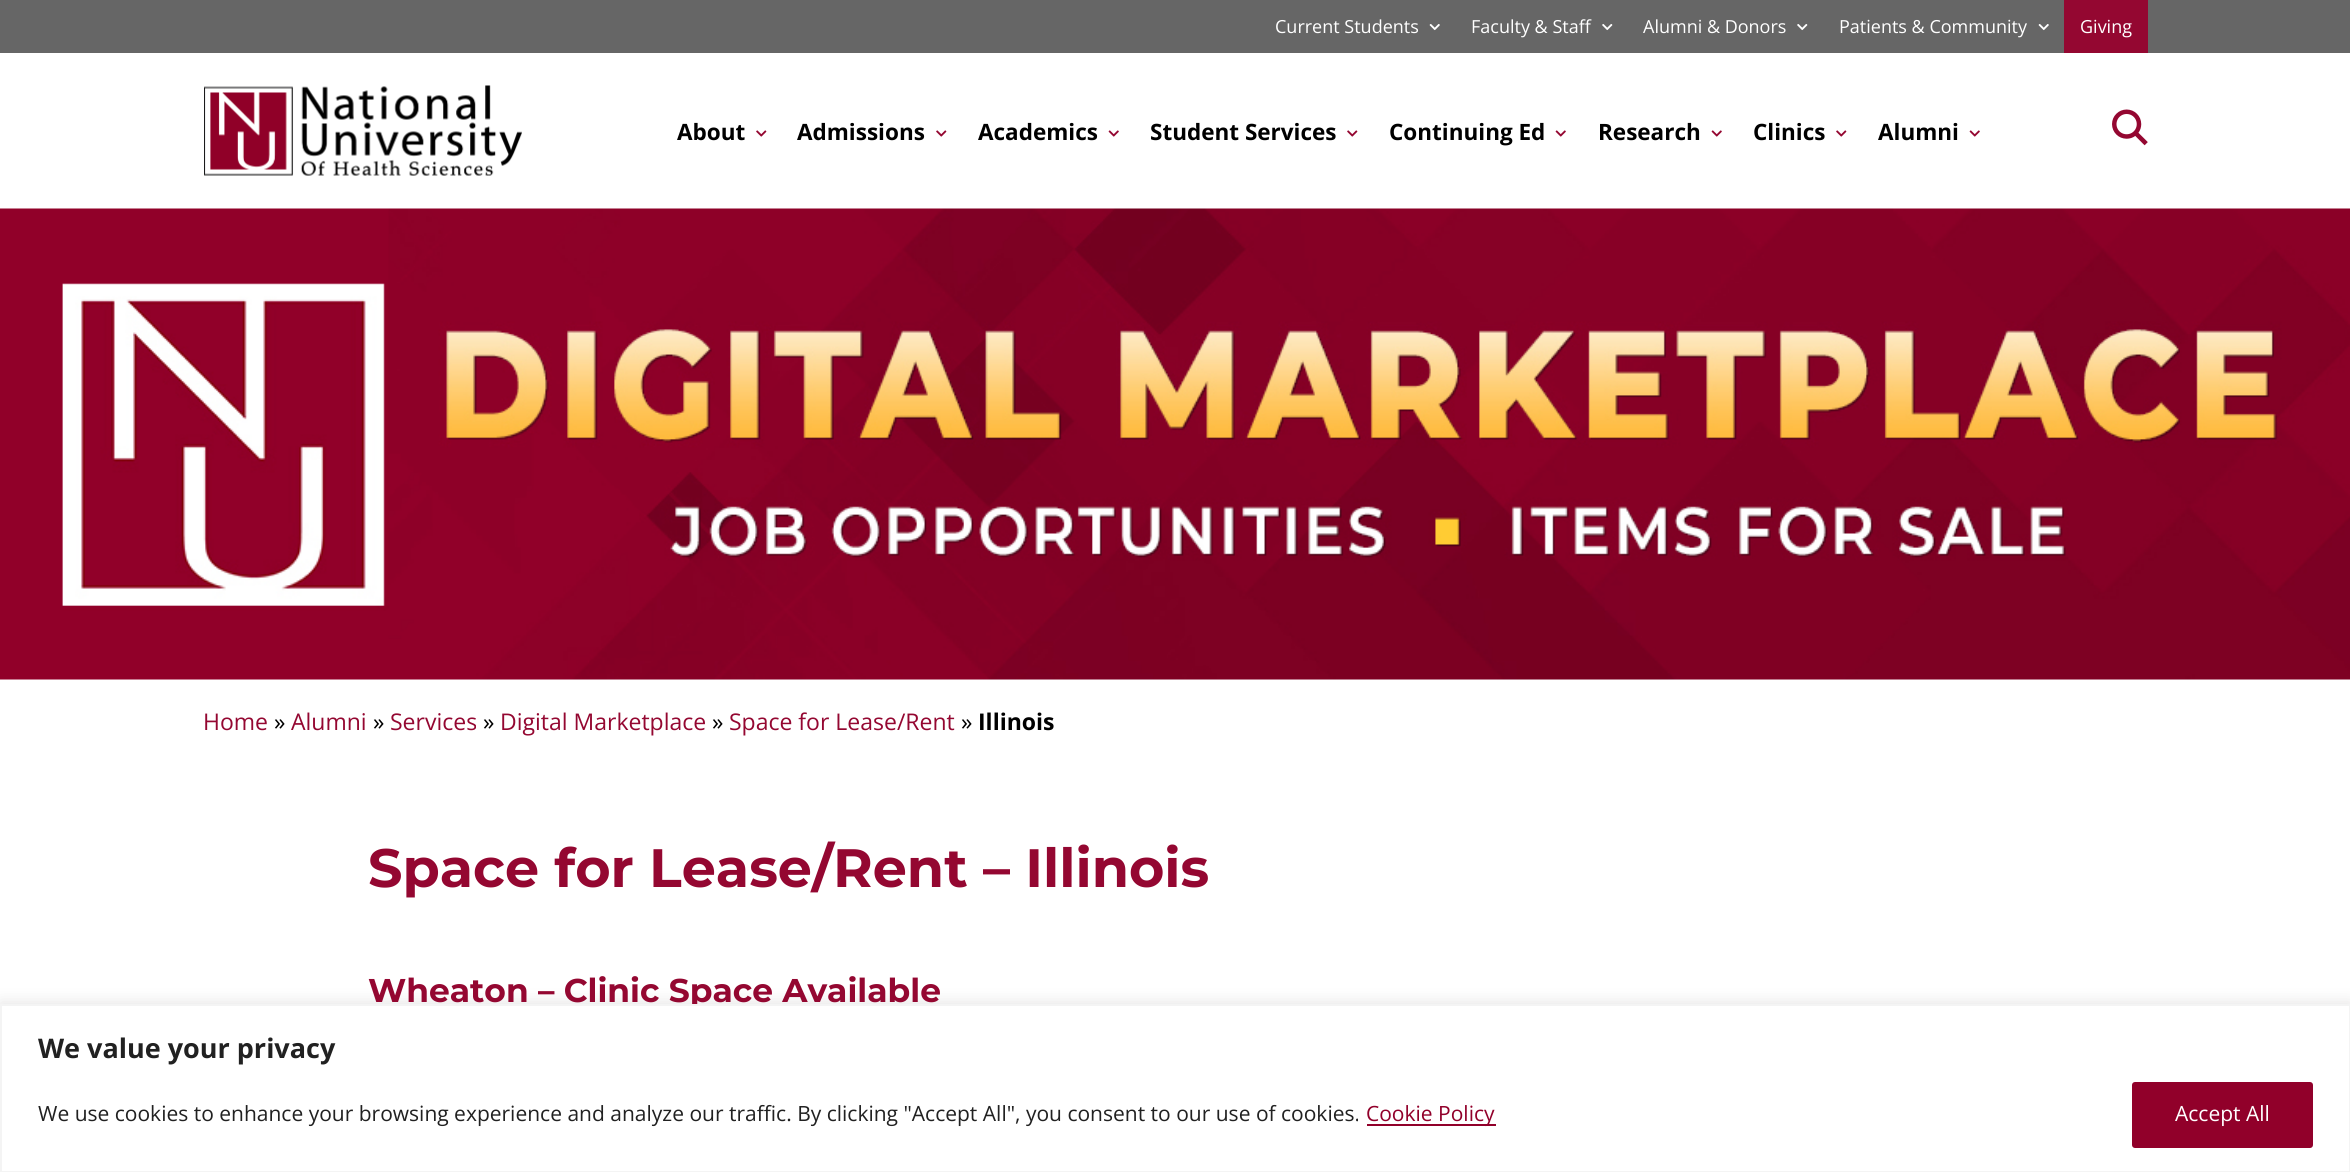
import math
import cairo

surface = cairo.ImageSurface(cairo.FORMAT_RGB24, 2350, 1172)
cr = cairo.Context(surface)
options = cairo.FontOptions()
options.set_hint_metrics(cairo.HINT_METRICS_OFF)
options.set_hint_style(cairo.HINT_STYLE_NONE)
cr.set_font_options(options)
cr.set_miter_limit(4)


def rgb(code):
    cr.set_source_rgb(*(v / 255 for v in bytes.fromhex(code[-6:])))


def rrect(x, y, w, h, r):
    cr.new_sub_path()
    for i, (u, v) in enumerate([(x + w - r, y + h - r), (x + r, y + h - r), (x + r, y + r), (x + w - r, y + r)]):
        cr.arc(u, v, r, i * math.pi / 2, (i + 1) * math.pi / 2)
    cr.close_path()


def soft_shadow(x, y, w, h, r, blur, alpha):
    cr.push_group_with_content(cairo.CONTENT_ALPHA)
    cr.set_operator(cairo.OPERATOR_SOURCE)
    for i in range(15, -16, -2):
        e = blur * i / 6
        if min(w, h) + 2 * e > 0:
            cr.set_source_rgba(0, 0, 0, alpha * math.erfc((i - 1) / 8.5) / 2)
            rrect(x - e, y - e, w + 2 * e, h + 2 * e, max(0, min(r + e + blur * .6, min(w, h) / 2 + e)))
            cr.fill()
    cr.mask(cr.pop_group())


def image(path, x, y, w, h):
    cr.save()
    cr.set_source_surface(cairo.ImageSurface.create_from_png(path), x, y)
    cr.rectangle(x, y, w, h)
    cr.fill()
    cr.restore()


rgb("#ffffff")
cr.paint()
rgb("#666666")
cr.rectangle(0, 0, 2350, 53)
cr.fill()
image("img/1.png", 1429, 24, 11, 7)
image("img/2.png", 1602, 24, 11, 7)
image("img/2.png", 1797, 24, 11, 7)
image("img/1.png", 2038, 24, 11, 7)
rgb("#940731")
cr.rectangle(2064, 0, 84, 53)
cr.fill()
image("img/3.png", 204, 85, 318, 91)
image("img/4.png", 756, 130, 11, 7)
image("img/4.png", 936, 130, 11, 7)
image("img/5.png", 1108, 130, 11, 7)
image("img/4.png", 1347, 130, 11, 7)
image("img/5.png", 1555, 130, 11, 7)
image("img/5.png", 1711, 130, 11, 7)
image("img/4.png", 1836, 130, 11, 7)
image("img/5.png", 1969, 130, 11, 7)
image("img/6.png", 2112, 109, 36, 37)
image("img/7.png", 0, 208, 2350, 472)
rgb("#acabab")
soft_shadow(0, 1002, 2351, 170, 0, 7.5, 0.3)
cr.select_font_face("Open Sans")
cr.set_font_size(18)
rgb("#ffffff")
for x, y, s in [
    (1275, 33, "Current Students"),
    (1471, 33, "Faculty & Staff"),
    (1643, 33, "Alumni & Donors"),
    (1839, 33, "Patients & Community"),
    (2080, 33, "Giving"),
]:
    cr.move_to(x, y)
    cr.show_text(s)
cr.select_font_face("Open Sans", cairo.FONT_SLANT_NORMAL, cairo.FONT_WEIGHT_BOLD)
cr.set_font_size(22.5)
rgb("#000000")
for x, y, s in [
    (677, 140, "About"),
    (797, 140, "Admissions"),
    (978, 140, "Academics"),
    (1150, 140, "Student Services"),
    (1389, 140, "Continuing Ed"),
    (1598, 140, "Research"),
    (1753, 140, "Clinics"),
    (1878, 140, "Alumni"),
]:
    cr.move_to(x, y)
    cr.show_text(s)
cr.select_font_face("Open Sans")
cr.set_font_size(23)
rgb("#940731")
cr.move_to(203, 730)
cr.show_text("Home")
rgb("#000000")
cr.move_to(274, 730)
cr.show_text("»")
rgb("#940731")
cr.move_to(291, 730)
cr.show_text("Alumni")
rgb("#000000")
cr.move_to(373, 730)
cr.show_text("»")
rgb("#940731")
cr.move_to(390, 730)
cr.show_text("Services")
rgb("#000000")
cr.move_to(483, 730)
cr.show_text("»")
rgb("#940731")
cr.move_to(500, 730)
cr.show_text("Digital Marketplace")
rgb("#000000")
cr.move_to(712, 730)
cr.show_text("»")
rgb("#940731")
cr.move_to(729, 730)
cr.show_text("Space for Lease/Rent")
rgb("#000000")
cr.move_to(961, 730)
cr.show_text("»")
cr.select_font_face("Open Sans", cairo.FONT_SLANT_NORMAL, cairo.FONT_WEIGHT_BOLD)
cr.move_to(978, 730)
cr.show_text("Illinois")
cr.select_font_face("Montserrat Thin")
cr.set_font_size(54)
rgb("#940731")
cr.move_to(368, 887)
cr.show_text("Space for Lease/Rent – Illinois")
cr.set_font_size(32.9)
cr.move_to(368, 1002)
cr.show_text("Wheaton – Clinic Space Available")
rgb("#ffffff")
cr.rectangle(1, 1005, 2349, 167)
cr.fill_preserve()
rgb("#f4f4f4")
cr.stroke()
cr.select_font_face("Open Sans", cairo.FONT_SLANT_NORMAL, cairo.FONT_WEIGHT_BOLD)
cr.set_font_size(27)
rgb("#212121")
cr.move_to(38, 1058)
cr.show_text("We value your privacy")
cr.select_font_face("Open Sans")
cr.set_font_size(21)
cr.move_to(38, 1121)
cr.show_text("We use cookies to enhance your browsing experience and analyze our traffic. By clicking \"Accept All\", you consent to our use of cookies.")
rgb("#91002a")
cr.rectangle(1367, 1124, 129, 2)
cr.fill()
cr.move_to(1366, 1121)
cr.show_text("Cookie Policy")
rrect(2133.5, 1083.5, 178, 63, 1.5)
cr.fill_preserve()
cr.set_line_width(3)
cr.stroke()
rgb("#ffffff")
cr.move_to(2175, 1121)
cr.show_text("Accept All")
surface.write_to_png("page.png")
